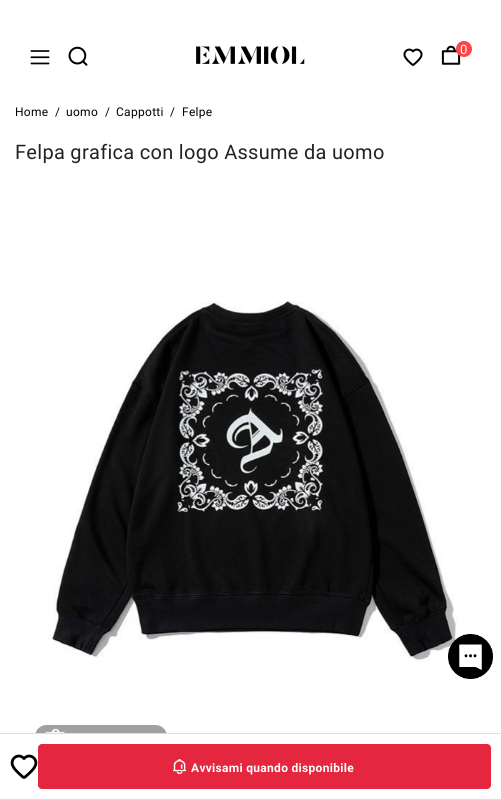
import math
import cairo

surface = cairo.ImageSurface(cairo.FORMAT_RGB24, 501, 800)
cr = cairo.Context(surface)
options = cairo.FontOptions()
options.set_hint_metrics(cairo.HINT_METRICS_OFF)
options.set_hint_style(cairo.HINT_STYLE_NONE)
cr.set_font_options(options)
cr.set_miter_limit(4)


def rgb(code):
    cr.set_source_rgb(*(v / 255 for v in bytes.fromhex(code[-6:])))


def tracked(x, y, s, letter, word):
    cr.move_to(x, y)
    for ch in s:
        cr.show_text(ch)
        cr.rel_move_to(letter + word * (ch == ' '), 0)


def rrect(x, y, w, h, r):
    cr.new_sub_path()
    for i, (u, v) in enumerate([(x + w - r, y + h - r), (x + r, y + h - r), (x + r, y + r), (x + w - r, y + r)]):
        cr.arc(u, v, r, i * math.pi / 2, (i + 1) * math.pi / 2)
    cr.close_path()


def image(path, x, y, w, h):
    cr.save()
    cr.set_source_surface(cairo.ImageSurface.create_from_png(path), x, y)
    cr.rectangle(x, y, w, h)
    cr.fill()
    cr.restore()


rgb("#ffffff")
cr.paint()
image("img/1.png", 30, 50, 20, 15)
image("img/2.png", 68, 46, 20, 20)
image("img/3.png", 196, 46, 109, 18)
image("img/4.png", 403, 48, 20, 18)
image("img/5.png", 441, 45, 20, 20)
rgb("#ff4545")
cr.arc(464, 49, 8, 0, 2 * math.pi)
cr.fill()
image("img/6.png", 47, 301, 412, 361)
rgb("#a1a1a1")
rrect(35, 725, 132, 23, 11.5)
cr.fill()
image("img/7.png", 45, 729, 20, 4)
for x, y, w, h, color in [
    (35, 734, 132, 14, "#ffffff"),
    (0, 733, 501, 1, "#dddddd"),
    (0, 799, 501, 1, "#dddddd"),
]:
    rgb(color)
    cr.rectangle(x, y, w, h)
    cr.fill()
image("img/8.png", 10, 754, 28, 25)
rgb("#e4263e")
rrect(38, 744, 453, 45, 4)
cr.fill()
image("img/9.png", 173, 759, 13, 15)
image("img/10.png", 448, 634, 45, 45)
cr.select_font_face("Roboto")
cr.set_font_size(13)
rgb("#ffffff")
tracked(460, 54, "0", 0.3, 0)
cr.set_font_size(12)
rgb("#000000")
for x, y, s in [
    (15, 116, "Home"),
    (55, 116, "/"),
    (66, 116, "uomo"),
    (105, 116, "/"),
    (116, 116, "Cappotti"),
    (170, 116, "/"),
    (182, 116, "Felpe"),
]:
    tracked(x, y, s, 0.3, 0)
cr.set_font_size(20)
rgb("#222222")
tracked(15, 159, "Felpa grafica con logo Assume da uomo", 0.3, 0)
cr.select_font_face("Roboto", cairo.FONT_SLANT_NORMAL, cairo.FONT_WEIGHT_BOLD)
cr.set_font_size(12)
rgb("#ffffff")
tracked(191, 772, "Avvisami quando disponibile", 0.3, 0)
surface.write_to_png("page.png")
